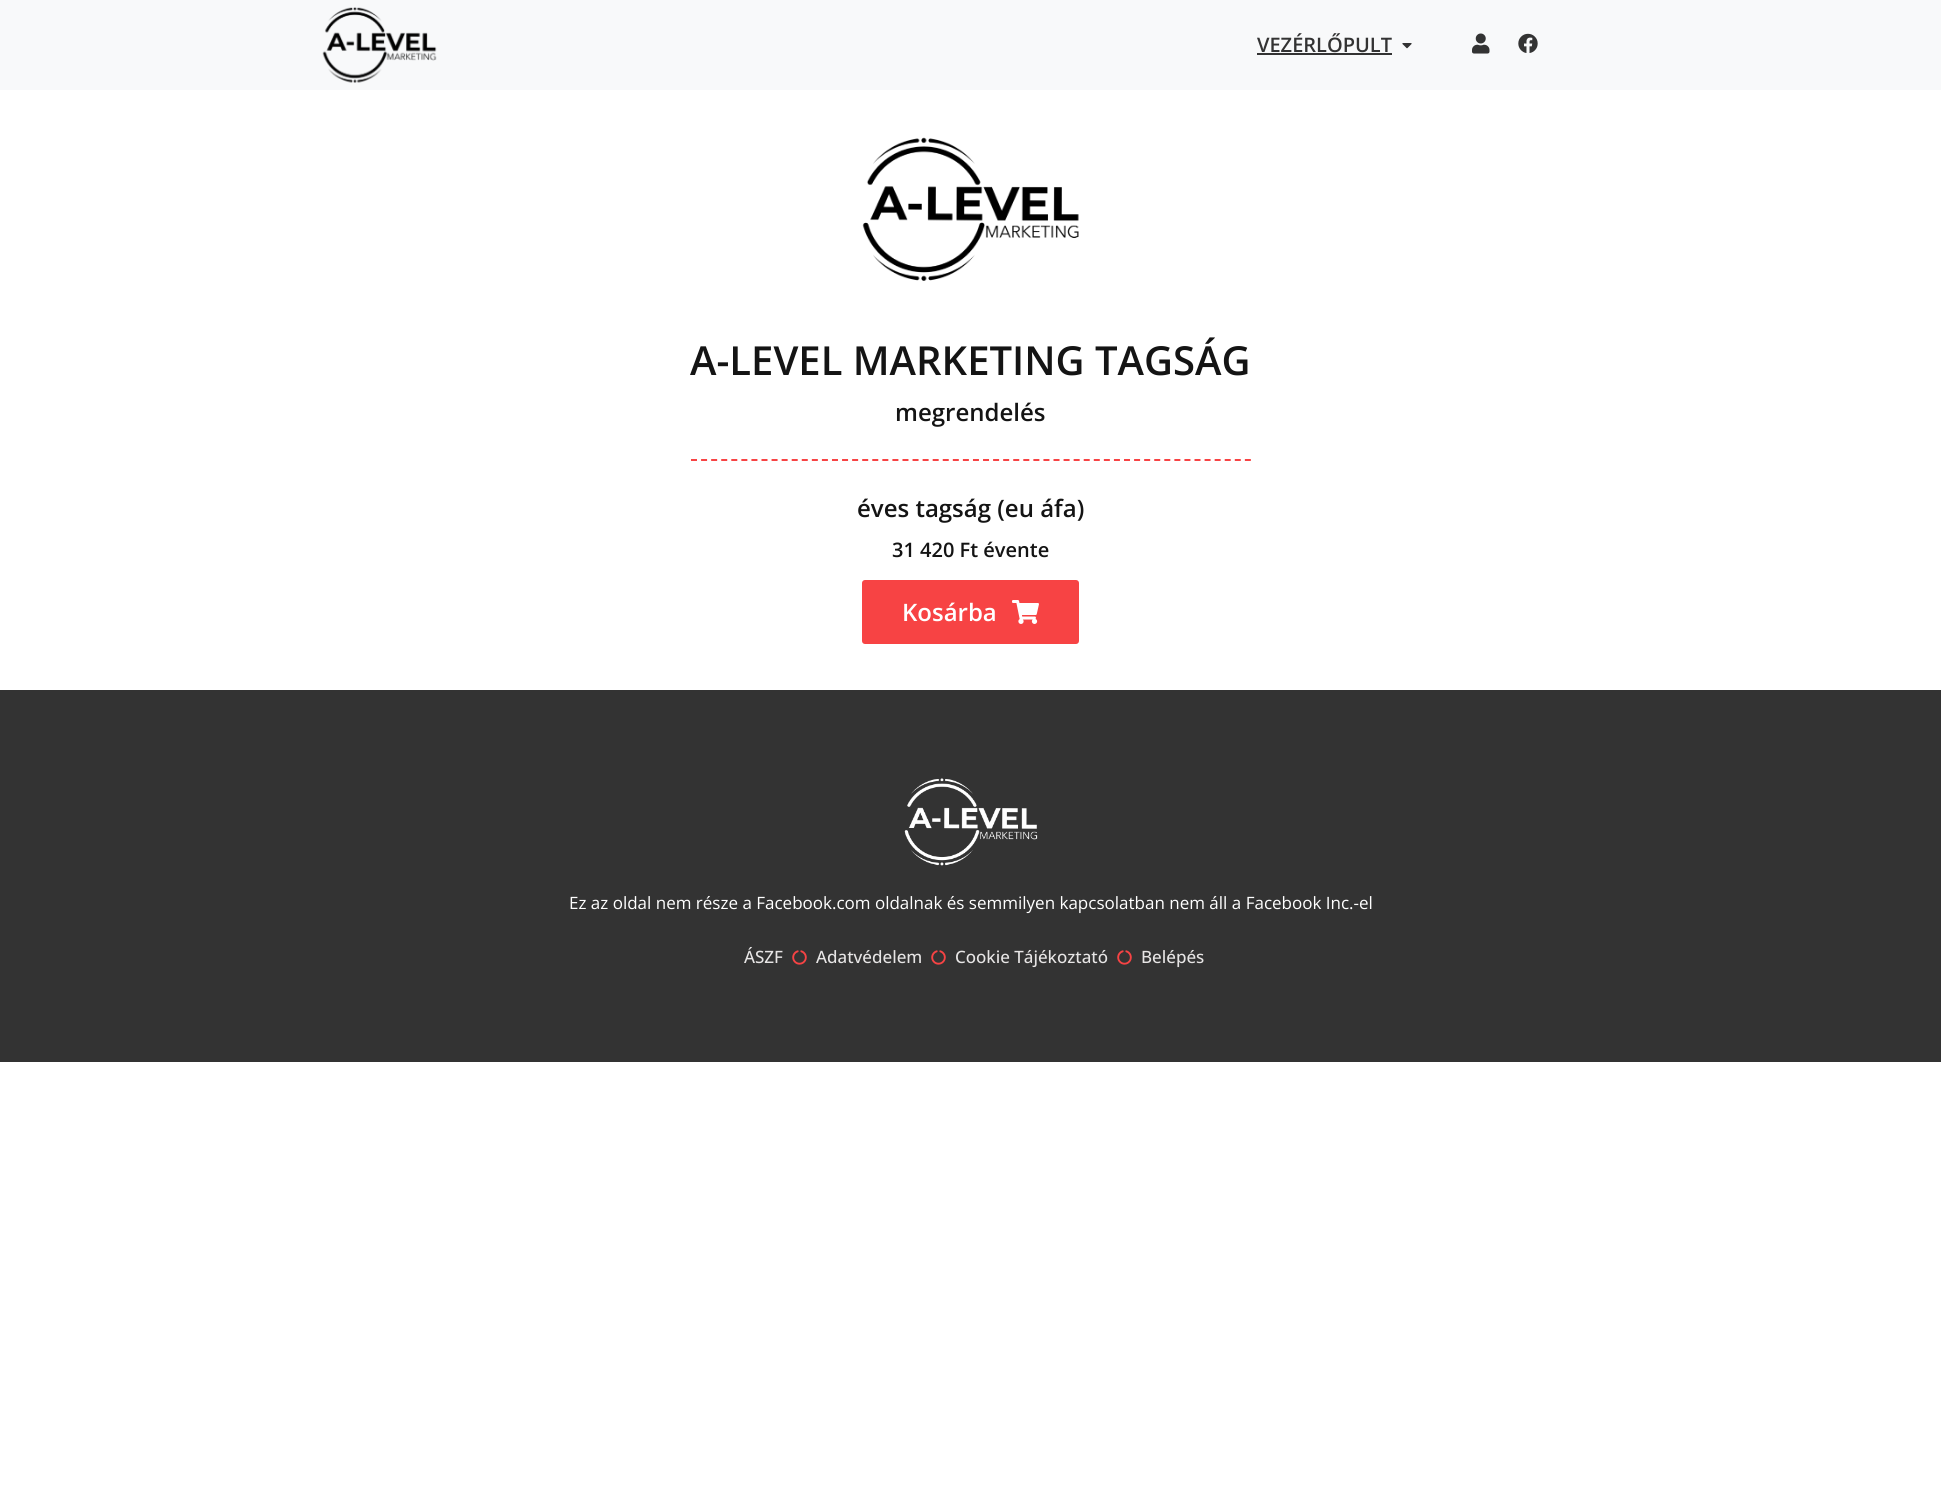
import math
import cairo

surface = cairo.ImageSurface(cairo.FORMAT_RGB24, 1941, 1490)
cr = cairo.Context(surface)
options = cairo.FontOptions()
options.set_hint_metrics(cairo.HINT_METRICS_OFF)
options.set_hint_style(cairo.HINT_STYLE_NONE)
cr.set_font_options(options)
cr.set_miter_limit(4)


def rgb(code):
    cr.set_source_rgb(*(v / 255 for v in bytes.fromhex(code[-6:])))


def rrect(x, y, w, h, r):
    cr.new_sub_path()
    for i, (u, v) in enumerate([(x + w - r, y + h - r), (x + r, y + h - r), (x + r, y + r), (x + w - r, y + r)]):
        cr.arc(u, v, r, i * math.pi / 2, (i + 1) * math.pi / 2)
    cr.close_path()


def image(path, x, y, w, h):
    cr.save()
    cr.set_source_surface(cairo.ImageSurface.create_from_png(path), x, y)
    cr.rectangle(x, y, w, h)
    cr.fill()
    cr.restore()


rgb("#ffffff")
cr.paint()
rgb("#f8f9fa")
cr.rectangle(0, 0, 1941, 90)
cr.fill()
image("img/1.png", 322, 7, 115, 76)
rgb("#333333")
cr.rectangle(1257, 53, 135, 2)
cr.fill()
image("img/2.png", 1402, 43, 10, 6)
image("img/3.png", 1472, 33, 18, 21)
image("img/4.png", 1518, 33, 20, 20)
image("img/5.png", 862, 137, 217, 144)
cr.new_path()
cr.move_to(691, 460)
cr.line_to(1251, 460)
rgb("#f74344")
cr.set_dash([6, 4.07])
cr.stroke()
rrect(862, 580, 217, 64, 3)
cr.fill()
image("img/6.png", 1012, 600, 27, 24)
rgb("#333333")
cr.rectangle(0, 690, 1941, 372)
cr.fill()
image("img/7.png", 904, 778, 134, 88)
image("img/8.png", 792, 950, 15, 15)
image("img/8.png", 931, 950, 15, 15)
image("img/8.png", 1117, 950, 15, 15)
cr.select_font_face("Open Sans SemiBold")
cr.set_font_size(20)
cr.move_to(1257, 52)
cr.show_text("VEZÉRLŐPULT")
cr.set_font_size(40)
rgb("#141414")
cr.move_to(690, 375)
cr.show_text("A-LEVEL MARKETING TAGSÁG")
cr.set_font_size(24)
cr.move_to(895, 421)
cr.show_text("megrendelés")
cr.move_to(857, 517)
cr.show_text("éves tagság (eu áfa)")
cr.set_font_size(20)
cr.move_to(892, 557)
cr.show_text("31 420 Ft évente")
cr.set_font_size(24)
rgb("#ffffff")
cr.move_to(902, 621)
cr.show_text("Kosárba")
cr.select_font_face("Open Sans")
cr.set_font_size(17)
cr.move_to(569, 909)
cr.show_text("Ez az oldal nem része a Facebook.com oldalnak és semmilyen kapcsolatban nem áll a Facebook Inc.-el")
cr.select_font_face("Open Sans Medium")
rgb("#e7e5e5")
for x, y, s in [
    (744, 963, "ÁSZF"),
    (816, 963, "Adatvédelem"),
    (955, 963, "Cookie Tájékoztató"),
    (1141, 963, "Belépés"),
]:
    cr.move_to(x, y)
    cr.show_text(s)
surface.write_to_png("page.png")
